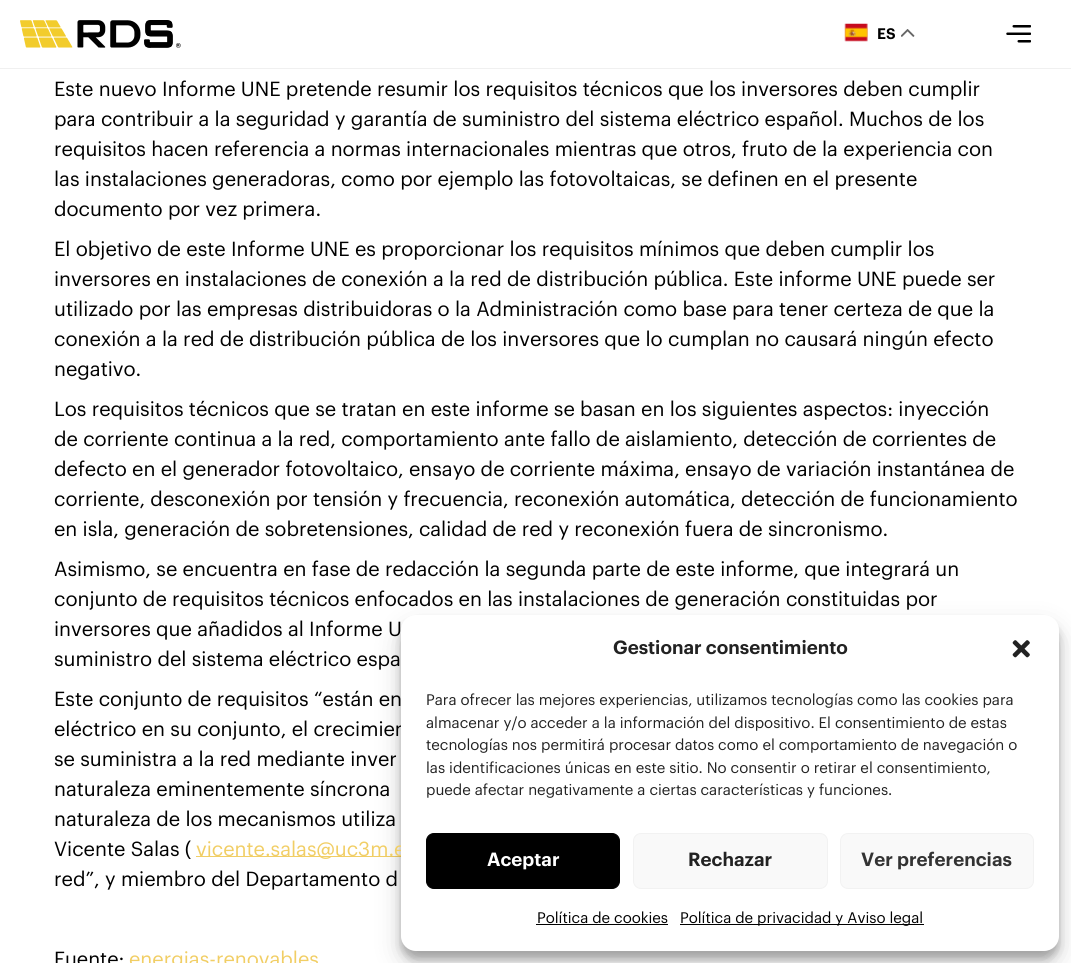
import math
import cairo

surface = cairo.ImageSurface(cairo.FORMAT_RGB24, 1071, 963)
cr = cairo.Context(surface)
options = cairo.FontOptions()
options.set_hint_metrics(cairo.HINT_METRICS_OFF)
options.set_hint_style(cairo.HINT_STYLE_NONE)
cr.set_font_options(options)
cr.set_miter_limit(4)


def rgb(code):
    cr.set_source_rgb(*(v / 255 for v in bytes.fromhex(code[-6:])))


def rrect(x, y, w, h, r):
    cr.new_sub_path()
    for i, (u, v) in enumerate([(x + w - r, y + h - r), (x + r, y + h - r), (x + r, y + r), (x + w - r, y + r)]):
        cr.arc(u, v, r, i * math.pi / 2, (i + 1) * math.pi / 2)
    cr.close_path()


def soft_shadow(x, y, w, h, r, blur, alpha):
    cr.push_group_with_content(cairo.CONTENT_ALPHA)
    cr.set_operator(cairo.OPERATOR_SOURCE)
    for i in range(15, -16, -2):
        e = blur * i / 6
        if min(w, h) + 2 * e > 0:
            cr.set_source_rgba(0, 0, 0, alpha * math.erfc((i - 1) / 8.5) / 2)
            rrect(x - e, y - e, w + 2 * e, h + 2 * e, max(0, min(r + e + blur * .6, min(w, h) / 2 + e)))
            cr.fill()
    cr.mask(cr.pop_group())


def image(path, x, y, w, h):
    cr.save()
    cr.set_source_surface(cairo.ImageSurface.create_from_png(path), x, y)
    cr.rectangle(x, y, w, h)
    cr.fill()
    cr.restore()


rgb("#ffffff")
cr.paint()
rgb("#f0f0f0")
cr.rectangle(0, 68, 1071, 1)
cr.fill()
image("img/1.png", 20, 20, 161, 28)
image("img/2.png", 844, 23, 24, 19)
image("img/3.png", 901, 29, 14, 8)
image("img/4.png", 1006, 25, 25, 18)
rgb("#f1ce65")
cr.rectangle(196, 856, 205, 1)
cr.fill()
rgb("#000000")
soft_shadow(401, 623, 658, 336, 15, 4, 0.23)
soft_shadow(401, 628, 658, 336, 15, 12.5, 0.19)
cr.select_font_face("Graphik SemiBold")
cr.set_font_size(15)
rgb("#000000")
cr.move_to(877, 39)
cr.show_text("ES")
cr.select_font_face("Graphik")
cr.set_font_size(20)
for x, y, s in [
    (54, 96, "Este nuevo Informe UNE pretende resumir los requisitos técnicos que los inversores deben cumplir"),
    (54, 126, "para contribuir a la seguridad y garantía de suministro del sistema eléctrico español. Muchos de los"),
    (54, 156, "requisitos hacen referencia a normas internacionales mientras que otros, fruto de la experiencia con"),
    (54, 186, "las instalaciones generadoras, como por ejemplo las fotovoltaicas, se definen en el presente"),
    (54, 216, "documento por vez primera."),
    (54, 256, "El objetivo de este Informe UNE es proporcionar los requisitos mínimos que deben cumplir los"),
    (54, 286, "inversores en instalaciones de conexión a la red de distribución pública. Este informe UNE puede ser"),
    (54, 316, "utilizado por las empresas distribuidoras o la Administración como base para tener certeza de que la"),
    (54, 346, "conexión a la red de distribución pública de los inversores que lo cumplan no causará ningún efecto"),
    (54, 376, "negativo."),
    (54, 416, "Los requisitos técnicos que se tratan en este informe se basan en los siguientes aspectos: inyección"),
    (54, 446, "de corriente continua a la red, comportamiento ante fallo de aislamiento, detección de corrientes de"),
    (54, 476, "defecto en el generador fotovoltaico, ensayo de corriente máxima, ensayo de variación instantánea de"),
    (54, 506, "corriente, desconexión por tensión y frecuencia, reconexión automática, detección de funcionamiento"),
    (54, 536, "en isla, generación de sobretensiones, calidad de red y reconexión fuera de sincronismo."),
    (54, 576, "Asimismo, se encuentra en fase de redacción la segunda parte de este informe, que integrará un"),
    (54, 606, "conjunto de requisitos técnicos enfocados en las instalaciones de generación constituidas por"),
    (54, 636, "inversores que añadidos al Informe U"),
    (54, 666, "suministro del sistema eléctrico espa"),
    (54, 706, "Este conjunto de requisitos “están en"),
    (54, 736, "eléctrico en su conjunto, el crecimien"),
    (54, 766, "se suministra a la red mediante inver"),
    (54, 796, "naturaleza eminentemente síncrona"),
    (54, 826, "naturaleza de los mecanismos utiliza"),
    (54, 856, "Vicente Salas ("),
]:
    cr.move_to(x, y)
    cr.show_text(s)
rgb("#f1ce65")
cr.move_to(196, 856)
cr.show_text("vicente.salas@uc3m.e")
rgb("#000000")
cr.move_to(54, 886)
cr.show_text("red”, y miembro del Departamento d")
cr.move_to(54, 966)
cr.show_text("Fuente:")
rgb("#f1ce65")
cr.move_to(129, 966)
cr.show_text("energias-renovables")
rgb("#ffffff")
rrect(401, 615, 658, 336, 15)
cr.fill()
cr.select_font_face("Graphik SemiBold")
cr.set_font_size(18.75)
rgb("#222222")
cr.move_to(613, 654)
cr.show_text("Gestionar consentimiento")
image("img/5.png", 1012, 640, 18, 18)
cr.select_font_face("Graphik")
cr.set_font_size(15)
for x, y, s in [
    (426, 705, "Para ofrecer las mejores experiencias, utilizamos tecnologías como las cookies para"),
    (426, 728, "almacenar y/o acceder a la información del dispositivo. El consentimiento de estas"),
    (426, 750, "tecnologías nos permitirá procesar datos como el comportamiento de navegación o"),
    (426, 773, "las identificaciones únicas en este sitio. No consentir o retirar el consentimiento,"),
    (426, 795, "puede afectar negativamente a ciertas características y funciones."),
]:
    cr.move_to(x, y)
    cr.show_text(s)
rgb("#000000")
rrect(426.5, 833.5, 193, 55, 7.5)
cr.fill_preserve()
cr.set_line_width(1)
cr.stroke()
cr.select_font_face("Graphik SemiBold")
cr.set_font_size(18.75)
rgb("#ffffff")
cr.move_to(487, 866)
cr.show_text("Aceptar")
rgb("#f9f9f9")
rrect(633.5, 833.5, 194, 55, 7.5)
cr.fill_preserve()
rgb("#f2f2f2")
cr.stroke()
rgb("#222222")
cr.move_to(688, 866)
cr.show_text("Rechazar")
rgb("#f9f9f9")
rrect(840.5, 833.5, 193, 55, 7.5)
cr.fill_preserve()
rgb("#f2f2f2")
cr.stroke()
rgb("#333333")
cr.move_to(861, 866)
cr.show_text("Ver preferencias")
cr.select_font_face("Graphik")
cr.set_font_size(15)
rgb("#000000")
cr.move_to(537, 923)
cr.show_text("Política de cookies")
cr.rectangle(536, 924, 132, 1)
cr.fill()
cr.rectangle(680, 924, 244, 1)
cr.fill()
cr.move_to(680, 923)
cr.show_text("Política de privacidad y Aviso legal")
surface.write_to_png("page.png")
